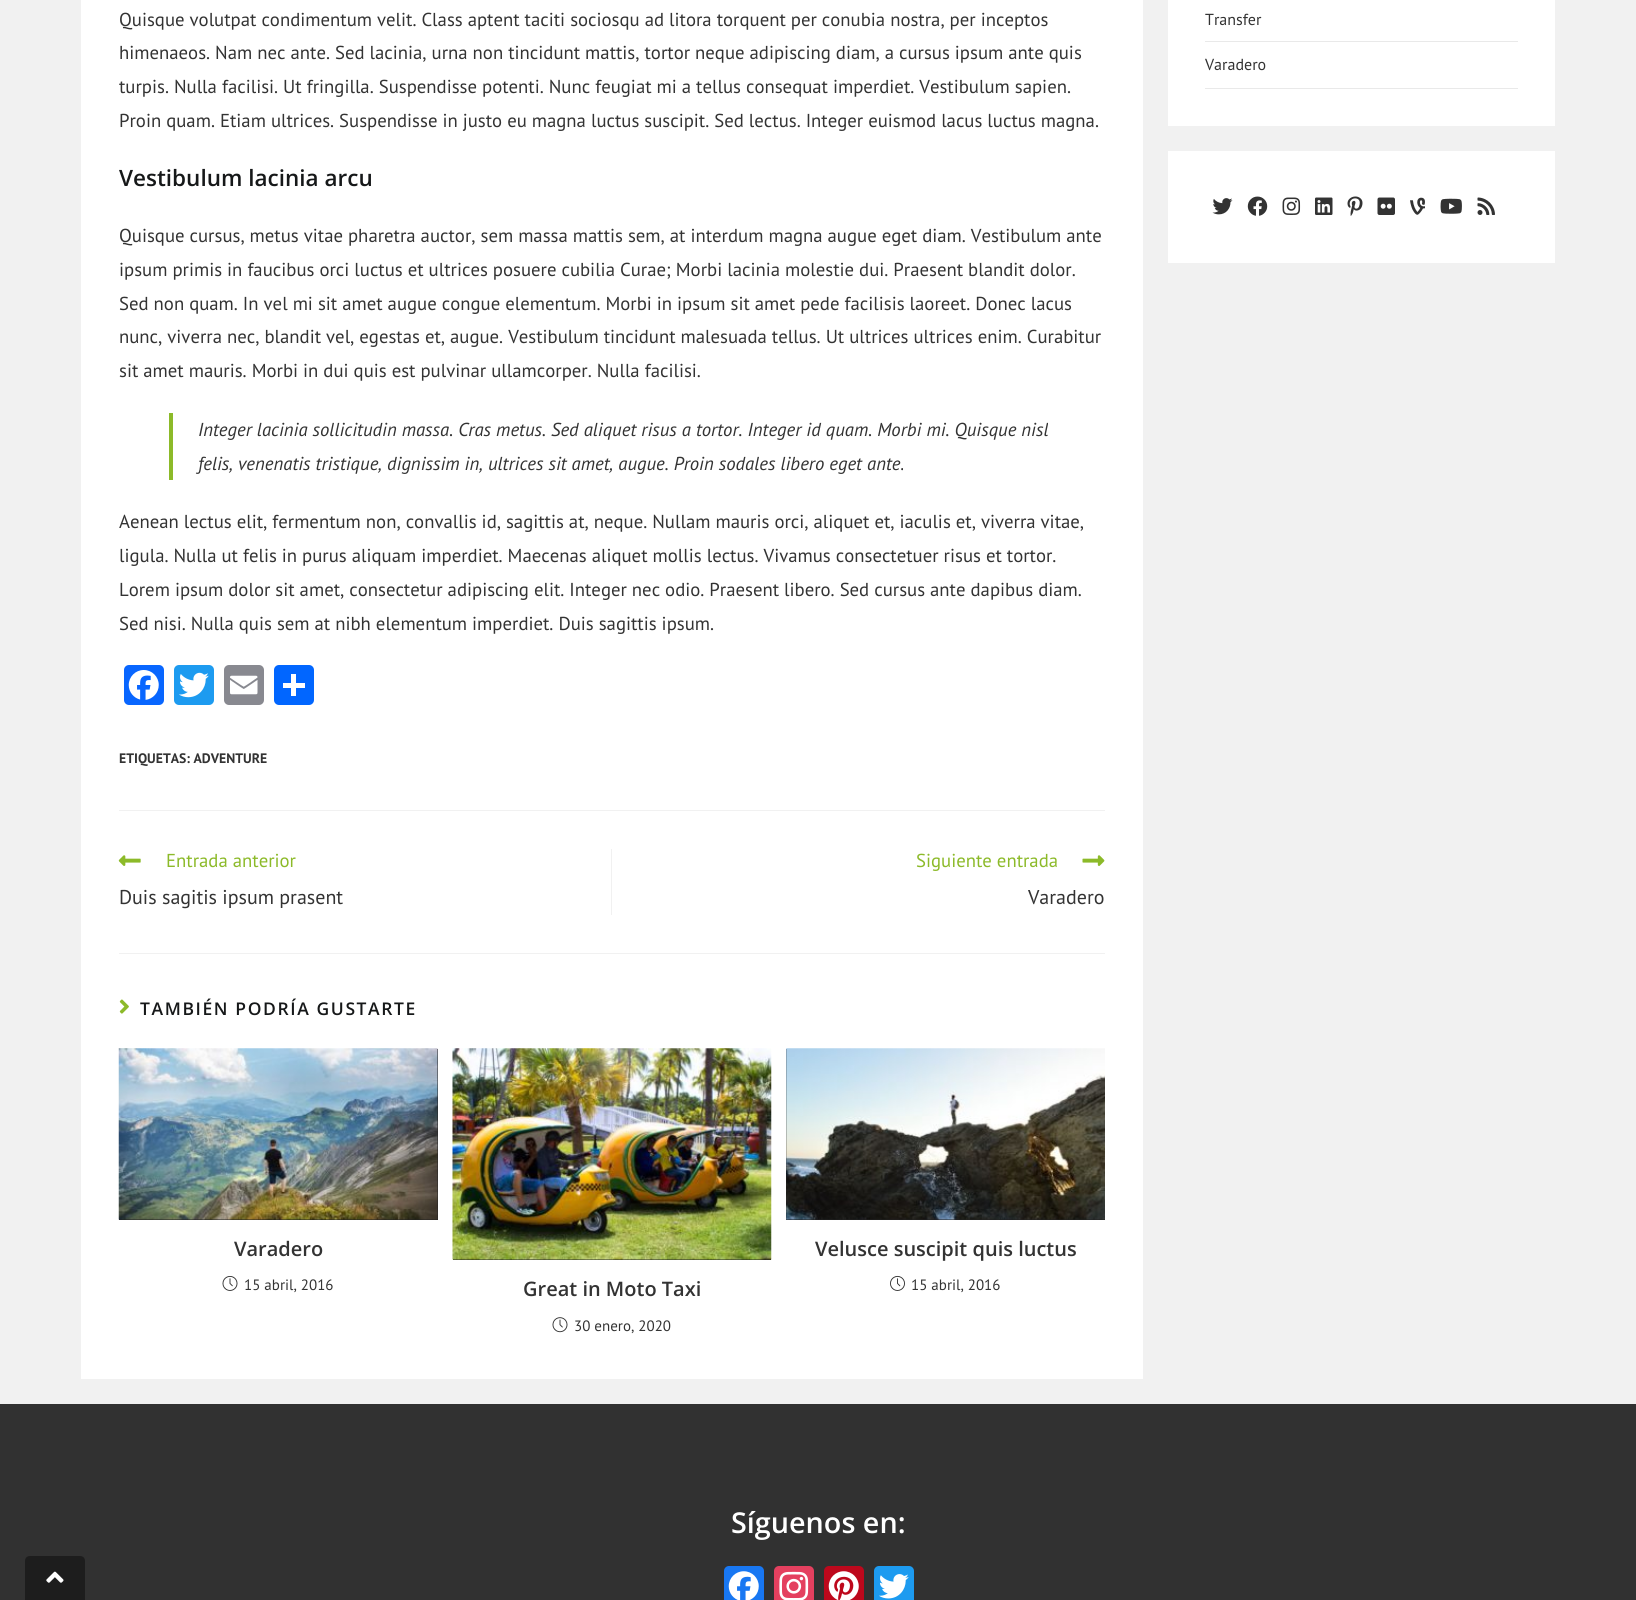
import math
import cairo

surface = cairo.ImageSurface(cairo.FORMAT_RGB24, 1636, 1600)
cr = cairo.Context(surface)
options = cairo.FontOptions()
options.set_hint_metrics(cairo.HINT_METRICS_OFF)
options.set_hint_style(cairo.HINT_STYLE_NONE)
cr.set_font_options(options)
cr.set_miter_limit(4)


def rgb(code):
    cr.set_source_rgb(*(v / 255 for v in bytes.fromhex(code[-6:])))


def tracked(x, y, s, letter, word):
    cr.move_to(x, y)
    for ch in s:
        cr.show_text(ch)
        cr.rel_move_to(letter + word * (ch == ' '), 0)


def rrect(x, y, w, h, r):
    cr.new_sub_path()
    for i, (u, v) in enumerate([(x + w - r, y + h - r), (x + r, y + h - r), (x + r, y + r), (x + w - r, y + r)]):
        cr.arc(u, v, r, i * math.pi / 2, (i + 1) * math.pi / 2)
    cr.close_path()


def image(path, x, y, w, h):
    cr.save()
    cr.set_source_surface(cairo.ImageSurface.create_from_png(path), x, y)
    cr.rectangle(x, y, w, h)
    cr.fill()
    cr.restore()


rgb("#f1f1f1")
cr.paint()
rgb("#ffffff")
cr.rectangle(81, 0, 1062, 1379)
cr.fill()
rgb("#8cba29")
cr.rectangle(169, 413, 4, 67)
cr.fill()
rgb("#0866ff")
rrect(124, 665, 40, 40, 5)
cr.fill()
image("img/1.png", 128, 670, 31, 30)
rgb("#1d9bf0")
rrect(174, 665, 40, 40, 5)
cr.fill()
image("img/2.png", 179, 672, 30, 26)
rgb("#888990")
rrect(224, 665, 40, 40, 5)
cr.fill()
image("img/3.png", 230, 675, 28, 20)
rgb("#0166ff")
rrect(274, 665, 40, 40, 5)
cr.fill()
for x, y, w, h, color in [
    (291, 674, 5, 22, "#ffffff"),
    (283, 683, 22, 5, "#ffffff"),
    (119, 810, 986, 1, "#f1f1f1"),
    (611, 849, 1, 66, "#f1f1f1"),
]:
    rgb(color)
    cr.rectangle(x, y, w, h)
    cr.fill()
image("img/4.png", 118, 855, 23, 11)
image("img/5.png", 1082, 855, 23, 11)
cr.rectangle(119, 953, 986, 1)
cr.fill()
image("img/6.png", 119, 999, 10, 15)
rgb("#222222")
cr.rectangle(119, 1049, 319, 171)
cr.fill()
image("img/7.png", 118, 1048, 320, 172)
image("img/8.png", 222, 1276, 16, 15)
cr.rectangle(786, 1049, 319, 171)
cr.fill()
image("img/9.png", 786, 1048, 319, 172)
image("img/10.png", 890, 1275, 15, 16)
cr.rectangle(453, 1259, 318, 1)
cr.fill()
image("img/11.png", 452, 1048, 320, 212)
image("img/12.png", 552, 1317, 16, 16)
for x, y, w, h, color in [
    (1168, 0, 387, 126, "#ffffff"),
    (1205, 41, 313, 1, "#e9e9e9"),
    (1205, 88, 313, 1, "#e9e9e9"),
    (1168, 151, 387, 112, "#ffffff"),
]:
    rgb(color)
    cr.rectangle(x, y, w, h)
    cr.fill()
image("img/13.png", 1212, 198, 21, 17)
image("img/14.png", 1247, 196, 21, 20)
image("img/15.png", 1282, 197, 19, 18)
image("img/16.png", 1315, 197, 18, 18)
image("img/17.png", 1347, 196, 16, 20)
image("img/18.png", 1377, 197, 18, 18)
image("img/19.png", 1410, 197, 15, 18)
image("img/20.png", 1440, 198, 22, 16)
image("img/21.png", 1477, 197, 18, 18)
rgb("#313131")
cr.rectangle(0, 1404, 1636, 196)
cr.fill()
rgb("#1877f2")
rrect(724, 1566, 40, 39, 5)
cr.fill()
image("img/22.png", 728, 1571, 31, 29)
rgb("#e4405f")
rrect(774, 1566, 40, 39, 5)
cr.fill()
image("img/23.png", 779, 1571, 30, 29)
rgb("#bd081c")
rrect(824, 1566, 40, 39, 5)
cr.fill()
image("img/24.png", 828, 1571, 31, 29)
rgb("#1d9bf0")
rrect(874, 1566, 40, 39, 5)
cr.fill()
image("img/25.png", 879, 1574, 30, 25)
rgb("#1d1d1d")
cr.new_path()
cr.move_to(30, 1556)
cr.line_to(80, 1556)
cr.curve_to(83, 1556, 85, 1558, 85, 1561)
cr.line_to(85, 1600)
cr.line_to(25, 1600)
cr.line_to(25, 1561)
cr.curve_to(25, 1558, 27, 1556, 30, 1556)
cr.close_path()
cr.fill()
image("img/26.png", 46, 1571, 18, 12)
cr.select_font_face("PT Sans")
cr.set_font_size(18.75)
rgb("#333333")
for x, y, s in [
    (119, 26, "Quisque volutpat condimentum velit. Class aptent taciti sociosqu ad litora torquent per conubia nostra, per inceptos"),
    (119, 59, "himenaeos. Nam nec ante. Sed lacinia, urna non tincidunt mattis, tortor neque adipiscing diam, a cursus ipsum ante quis"),
    (119, 93, "turpis. Nulla facilisi. Ut fringilla. Suspendisse potenti. Nunc feugiat mi a tellus consequat imperdiet. Vestibulum sapien."),
    (119, 127, "Proin quam. Etiam ultrices. Suspendisse in justo eu magna luctus suscipit. Sed lectus. Integer euismod lacus luctus magna."),
]:
    cr.move_to(x, y)
    cr.show_text(s)
cr.select_font_face("Open Sans SemiBold")
cr.set_font_size(22.5)
rgb("#161819")
cr.move_to(119, 186)
cr.show_text("Vestibulum lacinia arcu")
cr.select_font_face("PT Sans")
cr.set_font_size(18.75)
rgb("#333333")
for x, y, s in [
    (119, 242, "Quisque cursus, metus vitae pharetra auctor, sem massa mattis sem, at interdum magna augue eget diam. Vestibulum ante"),
    (119, 276, "ipsum primis in faucibus orci luctus et ultrices posuere cubilia Curae; Morbi lacinia molestie dui. Praesent blandit dolor."),
    (119, 310, "Sed non quam. In vel mi sit amet augue congue elementum. Morbi in ipsum sit amet pede facilisis laoreet. Donec lacus"),
    (119, 343, "nunc, viverra nec, blandit vel, egestas et, augue. Vestibulum tincidunt malesuada tellus. Ut ultrices ultrices enim. Curabitur"),
    (119, 377, "sit amet mauris. Morbi in dui quis est pulvinar ullamcorper. Nulla facilisi."),
]:
    cr.move_to(x, y)
    cr.show_text(s)
cr.select_font_face("PT Sans", cairo.FONT_SLANT_ITALIC)
cr.move_to(198, 436)
cr.show_text("Integer lacinia sollicitudin massa. Cras metus. Sed aliquet risus a tortor. Integer id quam. Morbi mi. Quisque nisl")
cr.move_to(198, 470)
cr.show_text("felis, venenatis tristique, dignissim in, ultrices sit amet, augue. Proin sodales libero eget ante.")
cr.select_font_face("PT Sans")
for x, y, s in [
    (119, 528, "Aenean lectus elit, fermentum non, convallis id, sagittis at, neque. Nullam mauris orci, aliquet et, iaculis et, viverra vitae,"),
    (119, 562, "ligula. Nulla ut felis in purus aliquam imperdiet. Maecenas aliquet mollis lectus. Vivamus consectetuer risus et tortor."),
    (119, 596, "Lorem ipsum dolor sit amet, consectetur adipiscing elit. Integer nec odio. Praesent libero. Sed cursus ante dapibus diam."),
    (119, 630, "Sed nisi. Nulla quis sem at nibh elementum imperdiet. Duis sagittis ipsum."),
]:
    cr.move_to(x, y)
    cr.show_text(s)
cr.select_font_face("PT Sans", cairo.FONT_SLANT_NORMAL, cairo.FONT_WEIGHT_BOLD)
cr.set_font_size(13.75)
cr.move_to(119, 763)
cr.show_text("ETIQUETAS: ADVENTURE")
cr.select_font_face("PT Sans")
cr.set_font_size(18.75)
rgb("#8cba29")
cr.move_to(166, 867)
cr.show_text("Entrada anterior")
cr.set_font_size(20)
rgb("#333333")
cr.move_to(119, 904)
cr.show_text("Duis sagitis ipsum prasent")
cr.set_font_size(18.75)
rgb("#8cba29")
cr.move_to(916, 867)
cr.show_text("Siguiente entrada")
cr.set_font_size(20)
rgb("#333333")
cr.move_to(1028, 904)
cr.show_text("Varadero")
cr.select_font_face("Open Sans SemiBold")
cr.set_font_size(17.5)
rgb("#161819")
tracked(140, 1015, "TAMBIÉN PODRÍA GUSTARTE", 1.6, 0)
cr.set_font_size(20)
rgb("#333333")
cr.move_to(234, 1256)
cr.show_text("Varadero")
cr.select_font_face("PT Sans")
cr.set_font_size(15)
cr.move_to(244, 1290)
cr.show_text("15 abril, 2016")
cr.select_font_face("Open Sans SemiBold")
cr.set_font_size(20)
cr.move_to(815, 1256)
cr.show_text("Velusce suscipit quis luctus")
cr.select_font_face("PT Sans")
cr.set_font_size(15)
cr.move_to(911, 1290)
cr.show_text("15 abril, 2016")
cr.select_font_face("Open Sans SemiBold")
cr.set_font_size(20)
cr.move_to(523, 1296)
cr.show_text("Great in Moto Taxi")
cr.select_font_face("PT Sans")
cr.set_font_size(15)
cr.move_to(574, 1331)
cr.show_text("30 enero, 2020")
cr.set_font_size(16)
cr.move_to(1205, 25)
cr.show_text("Transfer")
cr.move_to(1205, 70)
cr.show_text("Varadero")
cr.select_font_face("Open Sans SemiBold")
cr.set_font_size(28.75)
rgb("#ffffff")
cr.move_to(731, 1533)
cr.show_text("Síguenos en:")
surface.write_to_png("page.png")
